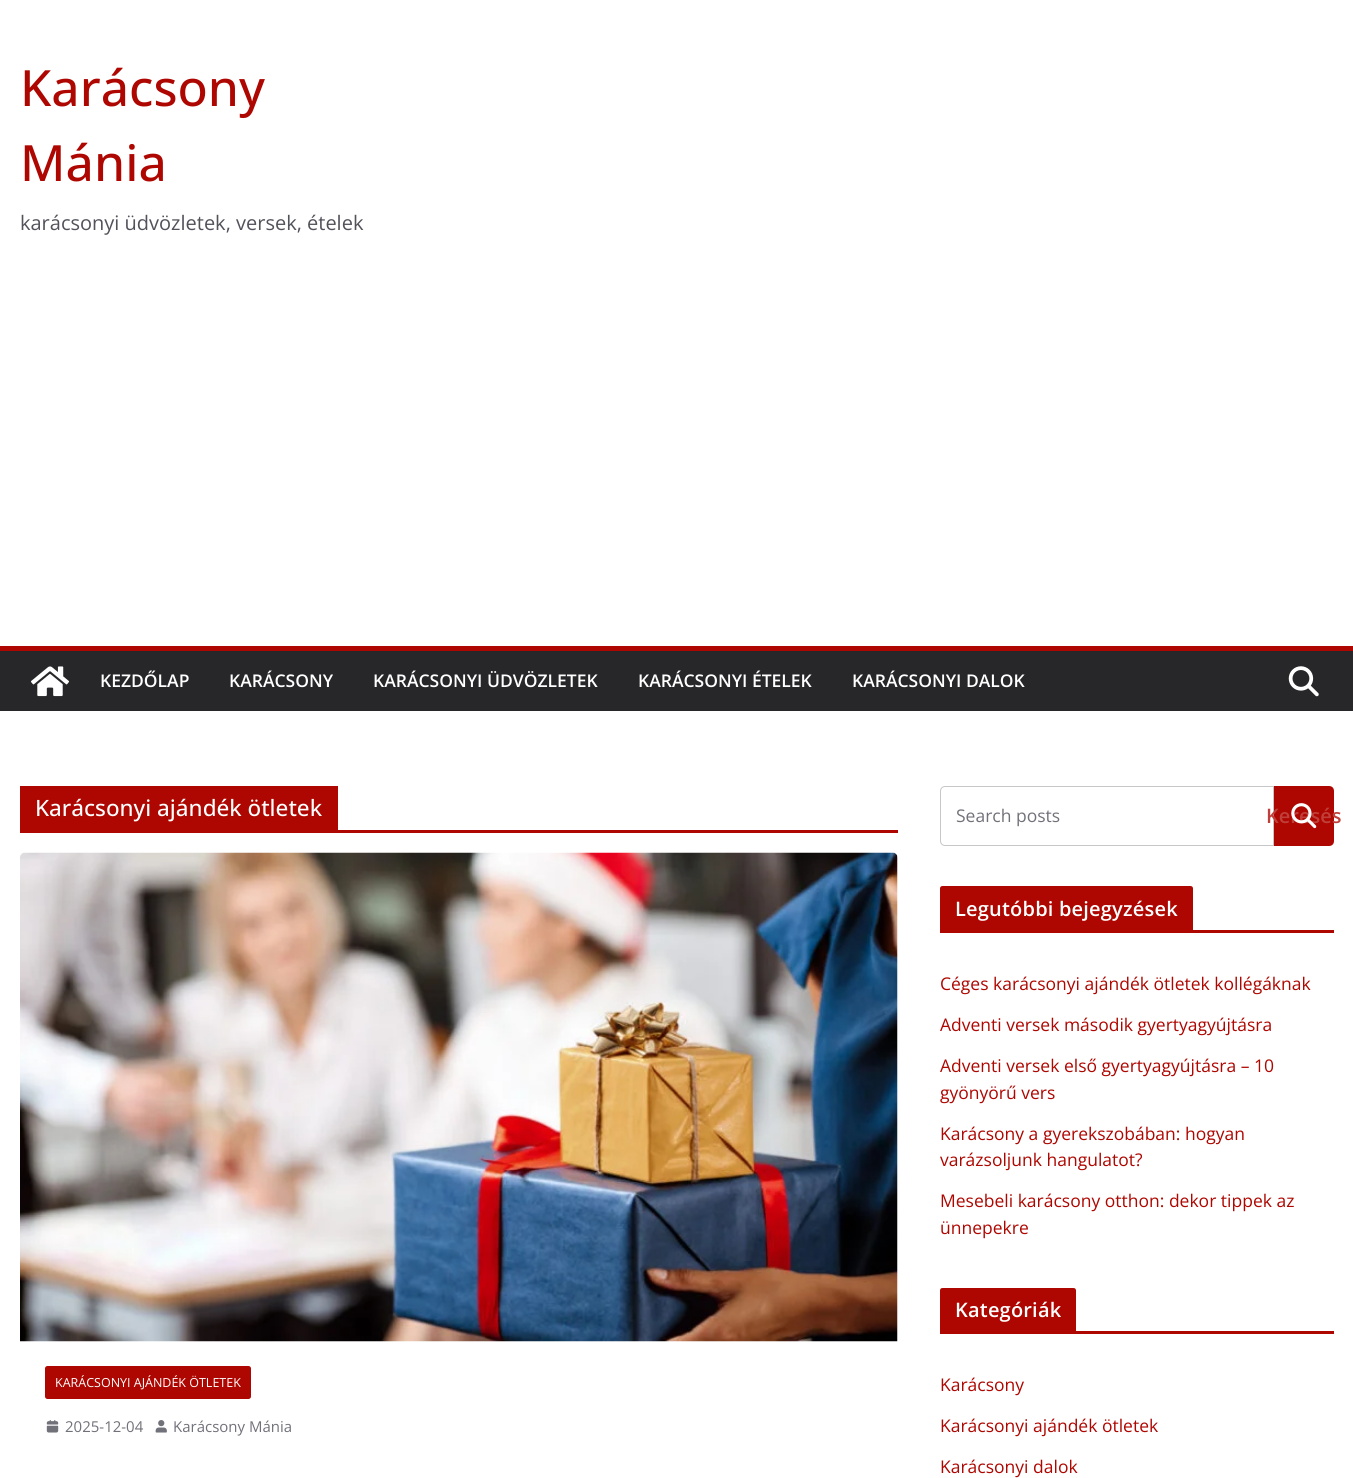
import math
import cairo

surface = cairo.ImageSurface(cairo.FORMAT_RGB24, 1353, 1478)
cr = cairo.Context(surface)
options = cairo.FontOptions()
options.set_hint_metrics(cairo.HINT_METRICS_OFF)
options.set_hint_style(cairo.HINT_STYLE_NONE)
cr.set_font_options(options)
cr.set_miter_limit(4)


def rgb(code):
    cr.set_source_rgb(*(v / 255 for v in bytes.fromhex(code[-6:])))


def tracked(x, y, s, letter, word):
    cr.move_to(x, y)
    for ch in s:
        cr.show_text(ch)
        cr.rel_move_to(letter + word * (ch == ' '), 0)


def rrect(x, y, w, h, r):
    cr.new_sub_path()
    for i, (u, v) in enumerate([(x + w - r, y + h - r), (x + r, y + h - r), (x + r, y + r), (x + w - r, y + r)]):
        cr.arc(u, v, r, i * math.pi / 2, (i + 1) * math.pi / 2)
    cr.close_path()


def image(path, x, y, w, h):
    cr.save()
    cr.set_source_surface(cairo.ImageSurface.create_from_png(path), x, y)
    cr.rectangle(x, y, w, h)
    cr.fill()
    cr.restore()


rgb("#ffffff")
cr.paint()
rgb("#27272a")
cr.rectangle(0, 651, 1353, 60)
cr.fill()
rgb("#ae0600")
cr.rectangle(0, 646, 1353, 5)
cr.fill()
image("img/1.png", 31, 666, 38, 31)
image("img/2.png", 1288, 666, 31, 31)
cr.rectangle(20, 830, 878, 3)
cr.fill()
cr.rectangle(20, 786, 318, 44)
cr.fill()
image("img/3.png", 20, 852, 878, 490)
rrect(45, 1366, 206, 33, 2.5)
cr.fill()
image("img/4.png", 46, 1420, 13, 13)
image("img/5.png", 155, 1420, 12, 13)
cr.new_path()
cr.move_to(945, 786.5)
cr.line_to(1273.5, 786.5)
cr.line_to(1273.5, 845.5)
cr.line_to(945, 845.5)
cr.curve_to(942.5, 845.5, 940.5, 843.5, 940.5, 841)
cr.line_to(940.5, 791)
cr.curve_to(940.5, 788.5, 942.5, 786.5, 945, 786.5)
cr.close_path()
rgb("#c7c7c7")
cr.set_line_width(1)
cr.stroke()
rgb("#ae0600")
cr.new_path()
cr.move_to(1274, 786)
cr.line_to(1329, 786)
cr.curve_to(1332, 786, 1334, 788, 1334, 791)
cr.line_to(1334, 841)
cr.curve_to(1334, 844, 1332, 846, 1329, 846)
cr.line_to(1274, 846)
cr.close_path()
cr.fill()
cr.rectangle(940, 930, 394, 3)
cr.fill()
cr.new_path()
cr.move_to(942.5, 886)
cr.line_to(1190.5, 886)
cr.curve_to(1192, 886, 1193, 887, 1193, 888.5)
cr.line_to(1193, 930)
cr.line_to(940, 930)
cr.line_to(940, 888.5)
cr.curve_to(940, 887, 941, 886, 942.5, 886)
cr.close_path()
cr.fill()
cr.rectangle(940, 1331, 394, 3)
cr.fill()
cr.new_path()
cr.move_to(942.5, 1288)
cr.line_to(1073.5, 1288)
cr.curve_to(1075, 1288, 1076, 1289, 1076, 1290.5)
cr.line_to(1076, 1331)
cr.line_to(940, 1331)
cr.line_to(940, 1290.5)
cr.curve_to(940, 1289, 941, 1288, 942.5, 1288)
cr.close_path()
cr.fill()
cr.select_font_face("Open Sans Medium")
cr.set_font_size(50)
cr.move_to(20, 106)
cr.show_text("Karácsony")
cr.move_to(20, 181)
cr.show_text("Mánia")
cr.select_font_face("Open Sans")
cr.set_font_size(20)
rgb("#52525b")
cr.move_to(20, 230)
cr.show_text("karácsonyi üdvözletek, versek, ételek")
cr.select_font_face("Open Sans SemiBold")
cr.set_font_size(17.5)
rgb("#ffffff")
for x, y, s in [
    (100, 687, "KEZDŐLAP"),
    (229, 687, "KARÁCSONY"),
    (373, 687, "KARÁCSONYI ÜDVÖZLETEK"),
    (638, 687, "KARÁCSONYI ÉTELEK"),
    (852, 687, "KARÁCSONYI DALOK"),
]:
    cr.move_to(x, y)
    cr.show_text(s)
cr.select_font_face("Open Sans Medium")
cr.set_font_size(22.5)
cr.move_to(35, 816)
cr.show_text("Karácsonyi ajándék ötletek")
cr.select_font_face("Open Sans")
cr.set_font_size(12.5)
cr.move_to(55, 1387)
cr.show_text("KARÁCSONYI AJÁNDÉK ÖTLETEK")
cr.set_font_size(15)
rgb("#71717a")
cr.move_to(65, 1432)
cr.show_text("2025-12-04")
cr.move_to(173, 1432)
cr.show_text("Karácsony Mánia")
cr.set_font_size(17.5)
cr.move_to(956, 822)
cr.show_text("Search posts")
cr.select_font_face("Open Sans SemiBold")
cr.set_font_size(20)
rgb("#c03f3a")
cr.move_to(1266, 823)
cr.show_text("Keresés")
image("img/6.png", 1291, 803, 26, 26)
rgb("#ffffff")
tracked(955, 916, "Legutóbbi bejegyzések", 0.2, 0)
cr.select_font_face("Open Sans")
cr.set_font_size(17.5)
rgb("#ae0600")
for x, y, s in [
    (940, 990, "Céges karácsonyi ajándék ötletek kollégáknak"),
    (940, 1031, "Adventi versek második gyertyagyújtásra"),
    (940, 1072, "Adventi versek első gyertyagyújtásra – 10"),
    (940, 1099, "gyönyörű vers"),
    (940, 1140, "Karácsony a gyerekszobában: hogyan"),
    (940, 1166, "varázsoljunk hangulatot?"),
    (940, 1207, "Mesebeli karácsony otthon: dekor tippek az"),
    (940, 1234, "ünnepekre"),
]:
    cr.move_to(x, y)
    cr.show_text(s)
cr.select_font_face("Open Sans SemiBold")
cr.set_font_size(20)
rgb("#ffffff")
tracked(955, 1317, "Kategóriák", 0.2, 0)
cr.select_font_face("Open Sans")
cr.set_font_size(17.5)
rgb("#ae0600")
for x, y, s in [
    (940, 1391, "Karácsony"),
    (940, 1432, "Karácsonyi ajándék ötletek"),
    (940, 1473, "Karácsonyi dalok"),
]:
    cr.move_to(x, y)
    cr.show_text(s)
surface.write_to_png("page.png")
